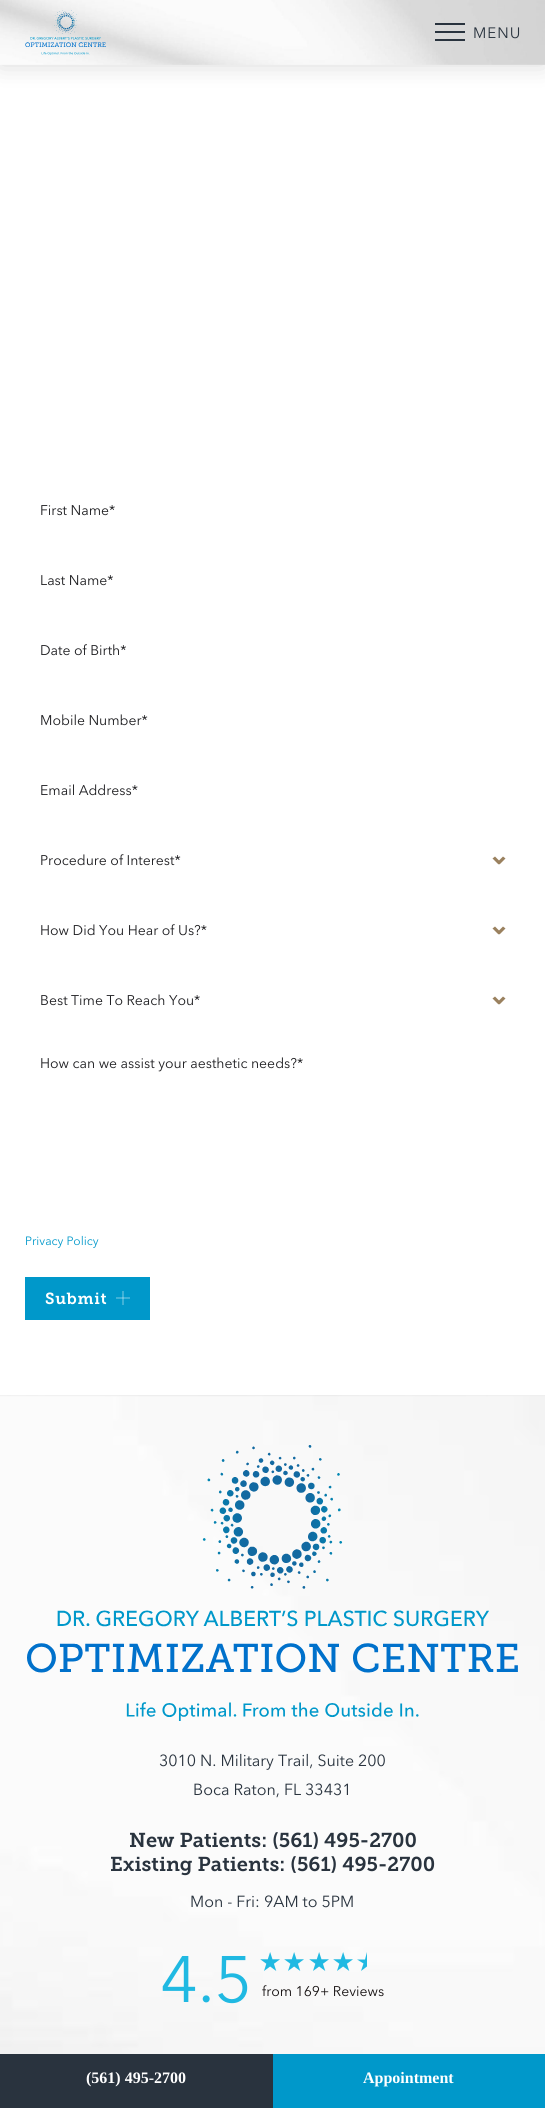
import math
import cairo

surface = cairo.ImageSurface(cairo.FORMAT_RGB24, 545, 2108)
cr = cairo.Context(surface)
options = cairo.FontOptions()
options.set_hint_metrics(cairo.HINT_METRICS_OFF)
options.set_hint_style(cairo.HINT_STYLE_NONE)
cr.set_font_options(options)
cr.set_miter_limit(4)


def rgb(code):
    cr.set_source_rgb(*(v / 255 for v in bytes.fromhex(code[-6:])))


def tracked(x, y, s, letter, word):
    cr.move_to(x, y)
    for ch in s:
        cr.show_text(ch)
        cr.rel_move_to(letter + word * (ch == ' '), 0)


def rrect(x, y, w, h, r):
    cr.new_sub_path()
    for i, (u, v) in enumerate([(x + w - r, y + h - r), (x + r, y + h - r), (x + r, y + r), (x + w - r, y + r)]):
        cr.arc(u, v, r, i * math.pi / 2, (i + 1) * math.pi / 2)
    cr.close_path()


def soft_shadow(x, y, w, h, r, blur, alpha):
    cr.push_group_with_content(cairo.CONTENT_ALPHA)
    cr.set_operator(cairo.OPERATOR_SOURCE)
    for i in range(15, -16, -2):
        e = blur * i / 6
        if min(w, h) + 2 * e > 0:
            cr.set_source_rgba(0, 0, 0, alpha * math.erfc((i - 1) / 8.5) / 2)
            rrect(x - e, y - e, w + 2 * e, h + 2 * e, max(0, min(r + e + blur * .6, min(w, h) / 2 + e)))
            cr.fill()
    cr.mask(cr.pop_group())


def image(path, x, y, w, h):
    cr.save()
    cr.set_source_surface(cairo.ImageSurface.create_from_png(path), x, y)
    cr.rectangle(x, y, w, h)
    cr.fill()
    cr.restore()


rgb("#ffffff")
cr.paint()
rgb("#000000")
soft_shadow(0, 0, 545, 65, 0, 12.5, 0.15)
image("img/1.png", 0, 0, 545, 65)
image("img/2.png", 25, 10, 81, 45)
for x, y, w, h, color in [
    (435, 23, 30, 2, "#29333e"),
    (435, 31, 30, 2, "#29333e"),
    (435, 39, 30, 2, "#29333e"),
]:
    rgb(color)
    cr.rectangle(x, y, w, h)
    cr.fill()
rgb("#9a815f")
cr.new_path()
cr.move_to(497.5, 862)
cr.line_to(503, 856.5)
cr.line_to(505.5, 858.5)
cr.line_to(499.5, 864.5)
cr.close_path()
cr.fill()
cr.new_path()
cr.move_to(492.5, 858.5)
cr.line_to(495, 856.5)
cr.line_to(500.5, 862)
cr.line_to(498.5, 864.5)
cr.close_path()
cr.fill()
cr.new_path()
cr.move_to(497.5, 932)
cr.line_to(503, 926.5)
cr.line_to(505.5, 928.5)
cr.line_to(499.5, 934.5)
cr.close_path()
cr.fill()
cr.new_path()
cr.move_to(492.5, 928.5)
cr.line_to(495, 926.5)
cr.line_to(500.5, 932)
cr.line_to(498.5, 934.5)
cr.close_path()
cr.fill()
cr.new_path()
cr.move_to(497.5, 1002)
cr.line_to(503, 996.5)
cr.line_to(505.5, 998.5)
cr.line_to(499.5, 1004.5)
cr.close_path()
cr.fill()
cr.new_path()
cr.move_to(492.5, 998.5)
cr.line_to(495, 996.5)
cr.line_to(500.5, 1002)
cr.line_to(498.5, 1004.5)
cr.close_path()
cr.fill()
rgb("#0098ca")
cr.rectangle(25, 1277, 125, 43)
cr.fill()
cr.new_path()
cr.move_to(123, 1291)
cr.line_to(123, 1305)
cr.move_to(130, 1298)
cr.line_to(116, 1298)
rgb("#ffffff")
cr.set_line_width(0.5)
cr.stroke()
image("img/3.png", 0, 1395, 545, 659)
image("img/4.png", 27, 1445, 491, 276)
image("img/5.png", 260, 1952, 20, 19)
image("img/5.png", 284, 1952, 20, 19)
image("img/5.png", 309, 1952, 20, 19)
image("img/6.png", 333, 1952, 20, 19)
rgb("#20b9e2")
cr.new_path()
cr.move_to(367, 1952)
cr.line_to(365, 1959.5)
cr.line_to(357, 1959.5)
cr.line_to(363.5, 1963.5)
cr.line_to(361, 1971)
cr.line_to(367, 1966.5)
cr.close_path()
cr.fill()
rgb("#29333e")
cr.rectangle(0, 2054, 273, 54)
cr.fill()
rgb("#0098ca")
cr.rectangle(273, 2054, 272, 54)
cr.fill()
cr.select_font_face("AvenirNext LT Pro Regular")
cr.set_font_size(15)
rgb("#29333e")
tracked(473, 38, "MENU", 1, 0)
cr.set_font_size(14)
rgb("#1e1e21")
for x, y, s in [
    (40, 515, "First Name*"),
    (40, 585, "Last Name*"),
    (40, 655, "Date of Birth*"),
    (40, 725, "Mobile Number*"),
    (40, 795, "Email Address*"),
    (40, 865, "Procedure of Interest*"),
    (40, 935, "How Did You Hear of Us?*"),
    (40, 1005, "Best Time To Reach You*"),
    (40, 1068, "How can we assist your aesthetic needs?*"),
]:
    cr.move_to(x, y)
    cr.show_text(s)
cr.set_font_size(12)
rgb("#0098ca")
cr.move_to(25, 1245)
cr.show_text("Privacy Policy")
cr.select_font_face("Museo Slab SemiBold")
cr.set_font_size(16)
rgb("#ffffff")
tracked(45, 1304, "Submit", 0.75, 0)
cr.select_font_face("AvenirNext LT Pro Regular")
rgb("#29333e")
cr.move_to(159, 1766)
cr.show_text("3010 N. Military Trail, Suite 200")
cr.move_to(193, 1795)
cr.show_text("Boca Raton, FL 33431")
cr.select_font_face("Museo Slab SemiBold")
cr.set_font_size(20)
cr.move_to(129, 1847)
cr.show_text("New Patients: (561) 495-2700")
cr.move_to(110, 1871)
cr.show_text("Existing Patients: (561) 495-2700")
cr.select_font_face("AvenirNext LT Pro Regular")
cr.set_font_size(16)
cr.move_to(190, 1907)
cr.show_text("Mon - Fri: 9AM to 5PM")
cr.set_font_size(65)
rgb("#20b9e2")
cr.move_to(160, 2002)
cr.show_text("4.5")
cr.set_font_size(14)
rgb("#171212")
cr.move_to(262, 1996)
cr.show_text("from 169+ Reviews")
cr.select_font_face("Liberation Serif", cairo.FONT_SLANT_NORMAL, cairo.FONT_WEIGHT_BOLD)
cr.set_font_size(16)
rgb("#ffffff")
cr.move_to(86, 2083)
cr.show_text("(561) 495-2700")
cr.move_to(363, 2083)
cr.show_text("Appointment")
surface.write_to_png("page.png")
